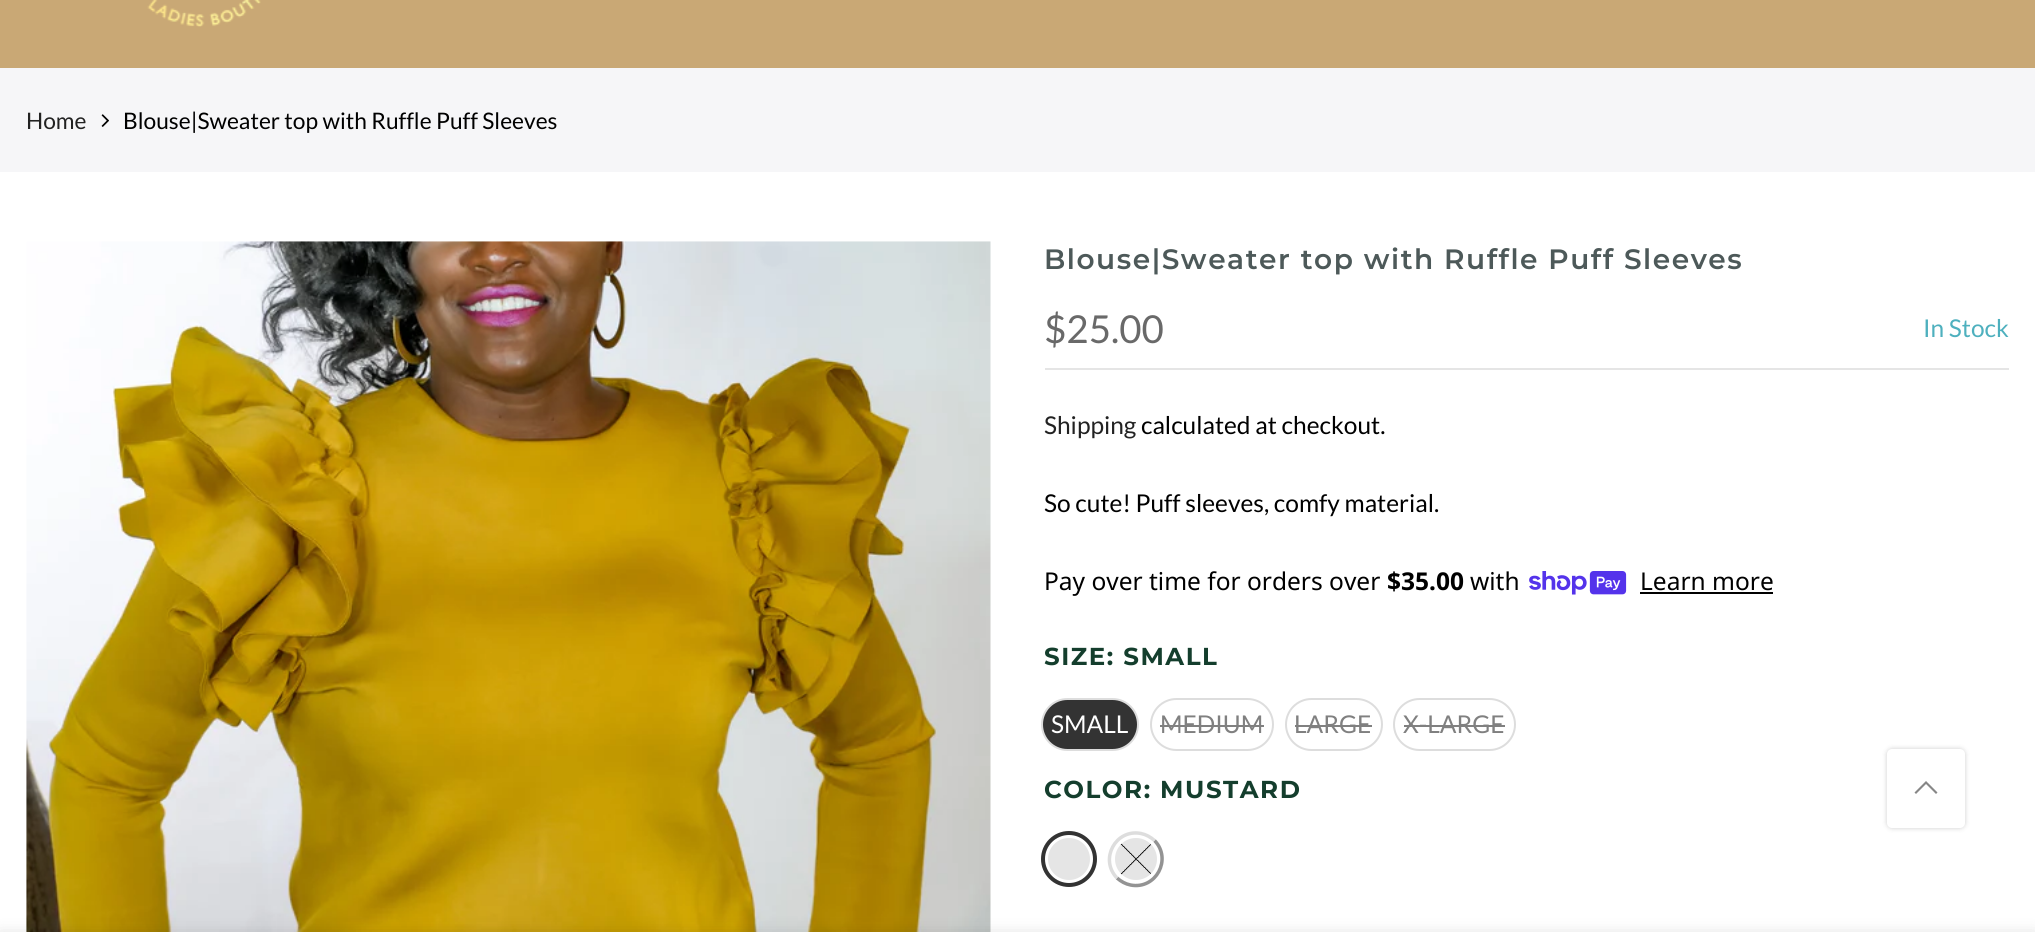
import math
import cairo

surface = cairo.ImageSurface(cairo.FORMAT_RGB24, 2035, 932)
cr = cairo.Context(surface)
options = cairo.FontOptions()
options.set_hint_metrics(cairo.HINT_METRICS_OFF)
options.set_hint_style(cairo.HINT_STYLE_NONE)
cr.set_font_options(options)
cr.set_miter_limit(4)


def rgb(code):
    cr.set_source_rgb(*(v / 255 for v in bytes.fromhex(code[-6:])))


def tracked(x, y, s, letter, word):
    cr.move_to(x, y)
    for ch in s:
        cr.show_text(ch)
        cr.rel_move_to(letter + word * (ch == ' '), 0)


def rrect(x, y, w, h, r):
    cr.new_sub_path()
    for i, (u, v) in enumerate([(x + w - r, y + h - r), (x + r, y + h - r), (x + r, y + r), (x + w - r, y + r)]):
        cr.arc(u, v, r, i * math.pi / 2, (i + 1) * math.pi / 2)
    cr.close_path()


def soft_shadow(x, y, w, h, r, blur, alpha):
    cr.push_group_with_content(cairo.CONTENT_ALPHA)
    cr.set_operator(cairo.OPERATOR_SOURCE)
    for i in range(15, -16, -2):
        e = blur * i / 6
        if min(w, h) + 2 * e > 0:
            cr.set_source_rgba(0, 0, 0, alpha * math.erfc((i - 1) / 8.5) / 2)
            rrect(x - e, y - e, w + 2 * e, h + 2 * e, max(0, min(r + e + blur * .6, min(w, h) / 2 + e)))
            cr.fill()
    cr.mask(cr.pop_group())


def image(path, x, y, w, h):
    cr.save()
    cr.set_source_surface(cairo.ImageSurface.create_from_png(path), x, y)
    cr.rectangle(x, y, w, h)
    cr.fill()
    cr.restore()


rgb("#ffffff")
cr.paint()
rgb("#c9a875")
cr.rectangle(0, 0, 2035, 68)
cr.fill()
image("img/1.png", 147, 0, 114, 27)
rgb("#f6f6f8")
cr.rectangle(0, 68, 2035, 104)
cr.fill()
image("img/2.png", 101, 114, 8, 13)
image("img/3.png", 26, 241, 965, 691)
rgb("#e5e5e5")
cr.rectangle(1045, 368, 964, 2)
cr.fill()
image("img/4.png", 1529, 571, 98, 24)
rgb("#000000")
cr.rectangle(1640, 592, 133, 2)
cr.fill()
rgb("#333333")
rrect(1042, 699, 96, 51, 25.5)
cr.fill_preserve()
rgb("#dddddd")
cr.stroke()
rrect(1151, 699, 122, 51, 25.5)
cr.stroke()
rgb("#808080")
cr.rectangle(1160, 725, 104, 2)
cr.fill()
rrect(1286, 699, 96, 51, 25.5)
rgb("#dddddd")
cr.stroke()
rgb("#808080")
cr.rectangle(1295, 725, 77, 2)
cr.fill()
rrect(1394, 699, 121, 51, 25.5)
rgb("#dddddd")
cr.stroke()
rgb("#808080")
cr.rectangle(1404, 725, 101, 2)
cr.fill()
cr.arc(1069, 859, 26, 0, 2 * math.pi)
rgb("#333333")
cr.set_line_width(4)
cr.stroke()
rgb("#e5e5e5")
cr.arc(1069, 859, 21, 0, 2 * math.pi)
cr.fill()
cr.new_path()
cr.move_to(1154.5, 840.5)
cr.curve_to(1172.5, 859, 1156, 890, 1130.5, 885)
cr.curve_to(1125.5, 884, 1121, 881.5, 1117, 878)
rgb("#939393")
cr.set_line_width(3.5)
cr.stroke()
cr.new_path()
cr.move_to(1117, 878)
cr.curve_to(1099, 859.5, 1115.5, 828.5, 1141, 833.5)
cr.curve_to(1146, 834.5, 1150.5, 837, 1154.5, 840.5)
rgb("#dddddd")
cr.stroke()
rgb("#e5e5e5")
cr.arc(1136, 859, 21, 0, 2 * math.pi)
cr.fill()
image("img/5.png", 1120, 843, 31, 32)
rgb("#000000")
soft_shadow(1887, 749, 78, 79, 5, 2.5, 0.2)
rgb("#ffffff")
rrect(1887, 749, 78, 79, 5)
cr.fill()
rgb("#878787")
cr.new_path()
cr.move_to(1927.5, 782.5)
cr.line_to(1926, 781)
cr.line_to(1914.5, 792.5)
cr.line_to(1916, 794)
cr.line_to(1926, 784)
cr.line_to(1936, 794)
cr.line_to(1937.5, 792.5)
cr.close_path()
cr.fill()
rgb("#000000")
soft_shadow(0, 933, 2035, 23, 0, 8, 0.12)
cr.select_font_face("Lato")
cr.set_font_size(22.75)
rgb("#222222")
cr.move_to(26, 129)
cr.show_text("Home")
rgb("#000000")
cr.move_to(123, 129)
cr.show_text("Blouse|Sweater top with Ruffle Puff Sleeves")
cr.select_font_face("Montserrat SemiBold")
cr.set_font_size(28)
rgb("#4d5959")
tracked(1044, 269, "Blouse|Sweater top with Ruffle Puff Sleeves", 1.55, 0)
cr.select_font_face("Lato")
cr.set_font_size(38.5)
rgb("#696969")
cr.move_to(1044, 343)
cr.show_text("$25.00")
cr.set_font_size(24.5)
rgb("#4eb0be")
cr.move_to(1923, 337)
cr.show_text("In Stock")
rgb("#222222")
cr.move_to(1044, 434)
cr.show_text("Shipping")
rgb("#000000")
cr.move_to(1141, 434)
cr.show_text("calculated at checkout.")
cr.move_to(1044, 512)
cr.show_text("So cute! Puff sleeves, comfy material.")
cr.select_font_face("Noto Sans")
cr.move_to(1044, 590)
cr.show_text("Pay over time for orders over")
cr.select_font_face("Noto Sans", cairo.FONT_SLANT_NORMAL, cairo.FONT_WEIGHT_BOLD)
cr.move_to(1387, 590)
cr.show_text("$35.00")
cr.select_font_face("Noto Sans")
cr.move_to(1470, 590)
cr.show_text("with")
cr.move_to(1640, 590)
cr.show_text("Learn more")
cr.select_font_face("Montserrat", cairo.FONT_SLANT_NORMAL, cairo.FONT_WEIGHT_BOLD)
rgb("#143e2d")
tracked(1044, 665, "SIZE: SMALL", 1.55, 0)
cr.select_font_face("Lato")
rgb("#ffffff")
cr.move_to(1051, 733)
cr.show_text("SMALL")
rgb("#808080")
for x, y, s in [
    (1160, 733, "MEDIUM"),
    (1294, 733, "LARGE"),
    (1403, 733, "X-LARGE"),
]:
    cr.move_to(x, y)
    cr.show_text(s)
cr.select_font_face("Montserrat", cairo.FONT_SLANT_NORMAL, cairo.FONT_WEIGHT_BOLD)
rgb("#143e2d")
tracked(1044, 798, "COLOR: MUSTARD", 1.55, 0)
surface.write_to_png("page.png")
